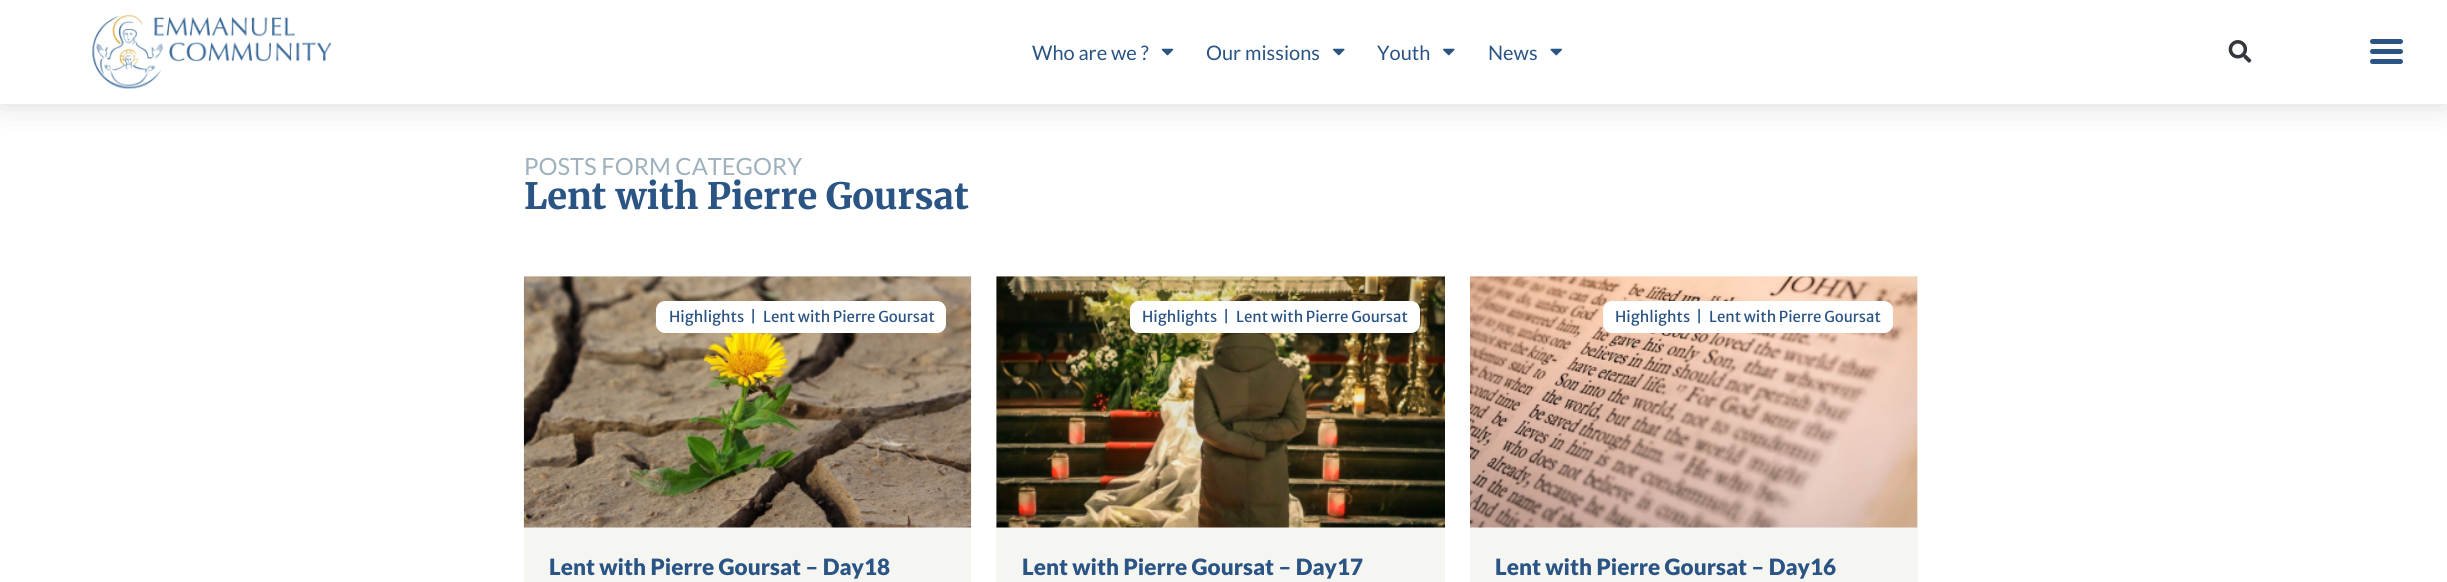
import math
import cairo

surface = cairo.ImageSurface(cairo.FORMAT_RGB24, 2447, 582)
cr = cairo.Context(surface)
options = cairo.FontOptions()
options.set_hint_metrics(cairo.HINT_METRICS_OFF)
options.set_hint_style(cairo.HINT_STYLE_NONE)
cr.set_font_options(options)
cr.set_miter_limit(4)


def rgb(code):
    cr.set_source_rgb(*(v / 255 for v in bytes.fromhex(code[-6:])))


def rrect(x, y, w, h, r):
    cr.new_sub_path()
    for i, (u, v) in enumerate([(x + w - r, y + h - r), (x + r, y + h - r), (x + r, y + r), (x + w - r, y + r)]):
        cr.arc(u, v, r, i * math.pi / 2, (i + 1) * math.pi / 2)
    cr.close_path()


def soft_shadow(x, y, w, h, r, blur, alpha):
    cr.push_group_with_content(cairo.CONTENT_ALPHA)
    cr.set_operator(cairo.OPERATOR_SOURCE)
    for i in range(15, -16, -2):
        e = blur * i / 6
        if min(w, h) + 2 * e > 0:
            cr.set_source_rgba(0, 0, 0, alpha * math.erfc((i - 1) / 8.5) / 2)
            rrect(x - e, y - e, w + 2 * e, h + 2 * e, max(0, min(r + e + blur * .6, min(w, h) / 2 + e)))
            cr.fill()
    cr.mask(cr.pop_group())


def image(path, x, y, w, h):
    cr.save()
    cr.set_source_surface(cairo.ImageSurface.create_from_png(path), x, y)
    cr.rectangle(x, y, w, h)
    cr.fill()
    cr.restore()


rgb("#ffffff")
cr.paint()
rgb("#000000")
soft_shadow(0, 0, 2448, 104, 0, 15, 0.15)
rgb("#ffffff")
cr.rectangle(0, 0, 2447, 104)
cr.fill()
image("img/1.png", 92, 15, 240, 74)
image("img/2.png", 1161, 48, 13, 8)
image("img/3.png", 1333, 48, 12, 8)
image("img/3.png", 1443, 48, 12, 8)
image("img/4.png", 1550, 48, 12, 8)
image("img/5.png", 2228, 40, 24, 23)
rgb("#2a5484")
rrect(2370, 49, 33, 5, 2.5)
cr.fill()
rrect(2370, 39, 33, 5, 2.5)
cr.fill()
rrect(2370, 59, 33, 5, 2.5)
cr.fill()
rgb("#f5f5f2")
cr.rectangle(524, 276, 447, 306)
cr.fill()
image("img/6.png", 523, 276, 449, 252)
rgb("#ffffff")
rrect(656, 301, 290, 32, 9)
cr.fill()
rgb("#f5f5f2")
cr.rectangle(996, 276, 449, 306)
cr.fill()
image("img/7.png", 996, 276, 449, 252)
rgb("#ffffff")
rrect(1130, 301, 290, 32, 9)
cr.fill()
rgb("#f5f5f2")
cr.rectangle(1470, 276, 448, 306)
cr.fill()
image("img/8.png", 1470, 276, 448, 252)
rgb("#ffffff")
rrect(1603, 301, 290, 32, 9)
cr.fill()
cr.select_font_face("Lato")
cr.set_font_size(20)
rgb("#2a5484")
for x, y, s in [
    (1032, 60, "Who are we ?"),
    (1206, 60, "Our missions"),
    (1377, 60, "Youth"),
    (1488, 60, "News"),
]:
    cr.move_to(x, y)
    cr.show_text(s)
cr.set_font_size(23.75)
rgb("#9fb1bc")
cr.move_to(524, 175)
cr.show_text("POSTS FORM CATEGORY")
cr.select_font_face("Merriweather ExtraBold")
cr.set_font_size(36.25)
rgb("#2a5484")
cr.move_to(524, 209)
cr.show_text("Lent with Pierre Goursat")
cr.select_font_face("Merriweather Sans")
cr.set_font_size(15)
for x, y, s in [
    (669, 322, "Highlights"),
    (750, 322, "|"),
    (763, 322, "Lent with Pierre Goursat"),
]:
    cr.move_to(x, y)
    cr.show_text(s)
cr.select_font_face("Lato Black")
cr.set_font_size(22.5)
cr.move_to(549, 575)
cr.show_text("Lent with Pierre Goursat – Day18")
cr.select_font_face("Merriweather Sans")
cr.set_font_size(15)
for x, y, s in [
    (1142, 322, "Highlights"),
    (1223, 322, "|"),
    (1236, 322, "Lent with Pierre Goursat"),
]:
    cr.move_to(x, y)
    cr.show_text(s)
cr.select_font_face("Lato Black")
cr.set_font_size(22.5)
cr.move_to(1022, 575)
cr.show_text("Lent with Pierre Goursat – Day17")
cr.select_font_face("Merriweather Sans")
cr.set_font_size(15)
for x, y, s in [
    (1615, 322, "Highlights"),
    (1696, 322, "|"),
    (1709, 322, "Lent with Pierre Goursat"),
]:
    cr.move_to(x, y)
    cr.show_text(s)
cr.select_font_face("Lato Black")
cr.set_font_size(22.5)
cr.move_to(1495, 575)
cr.show_text("Lent with Pierre Goursat – Day16")
surface.write_to_png("page.png")
